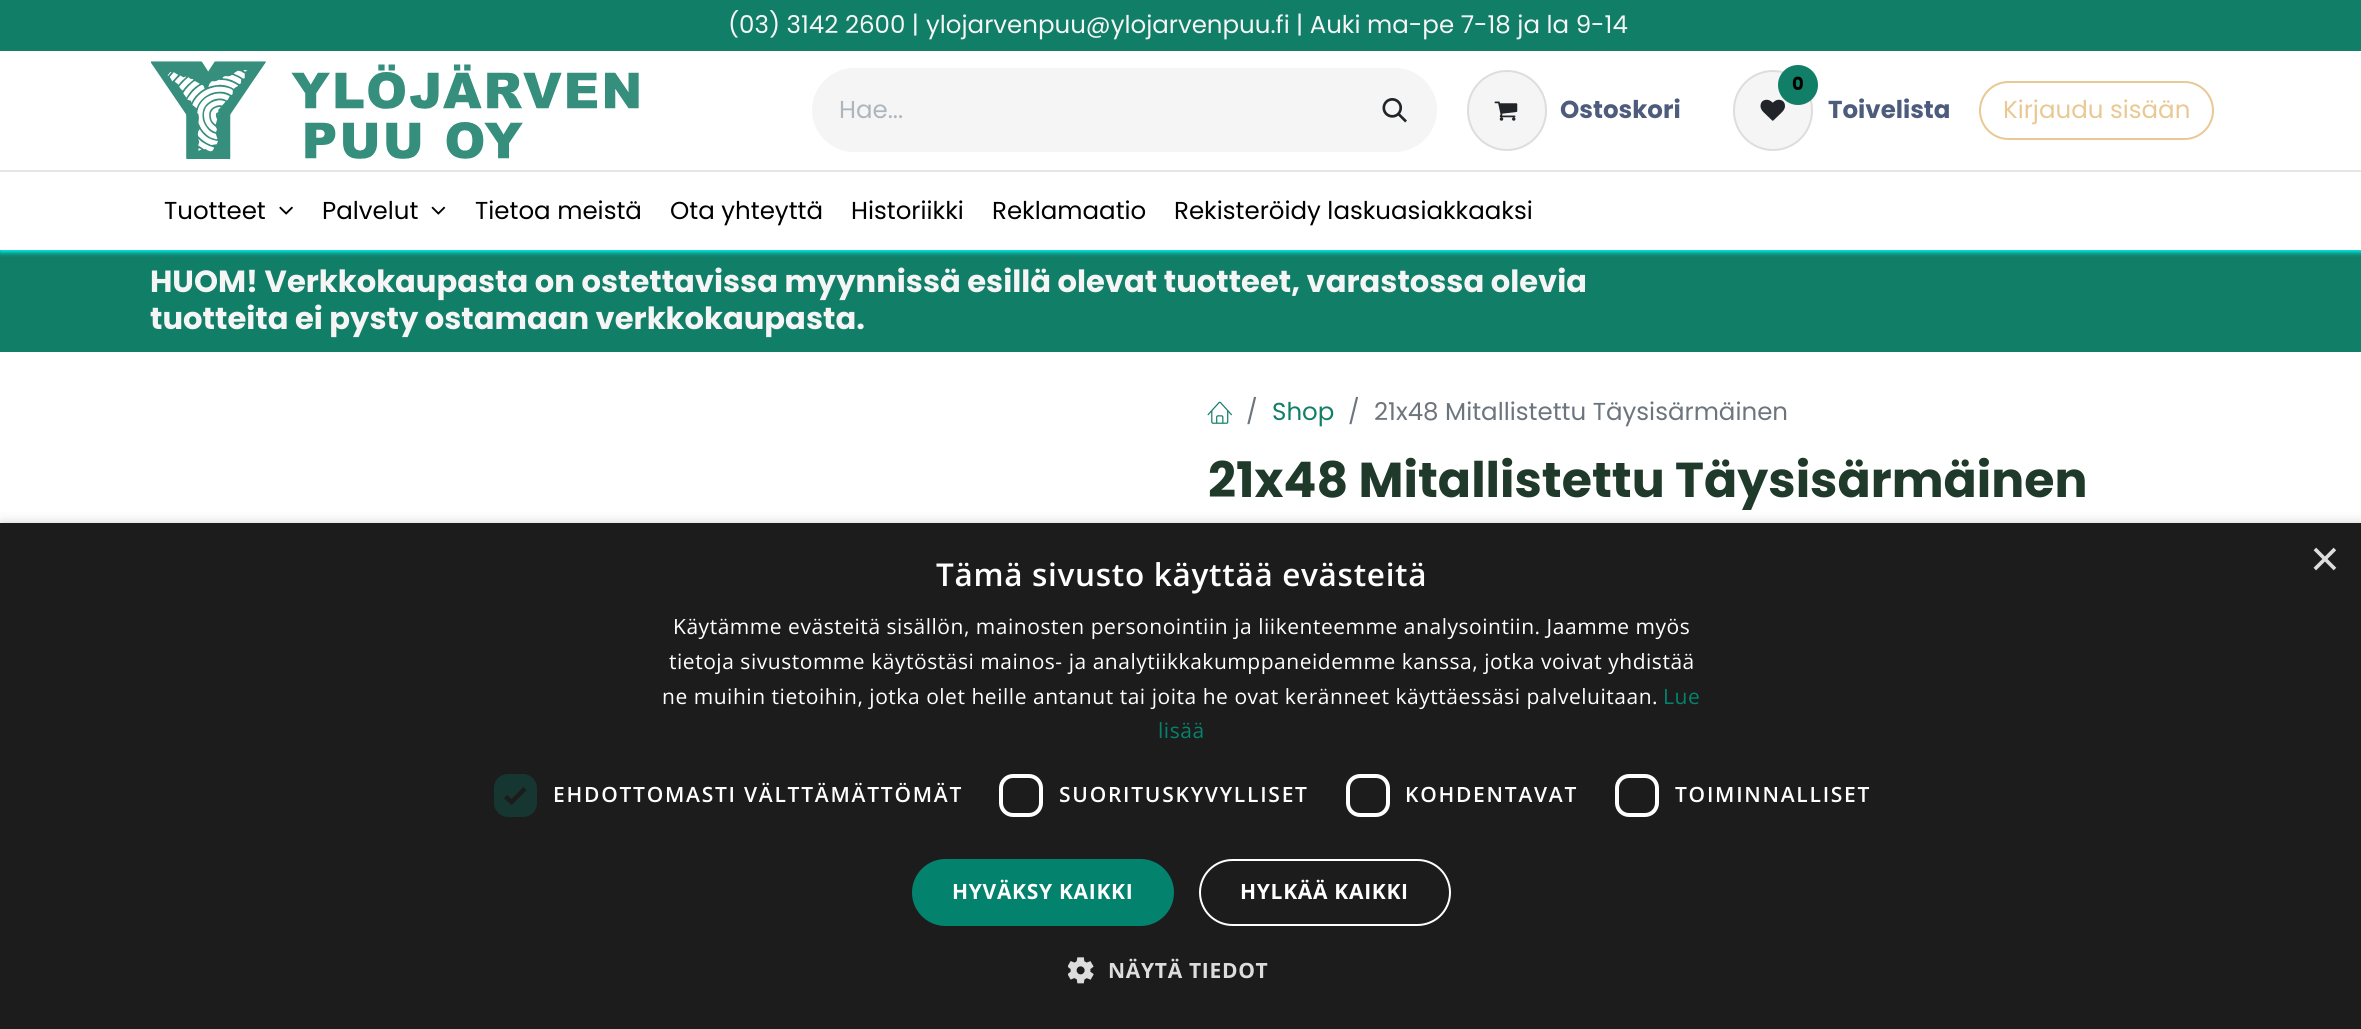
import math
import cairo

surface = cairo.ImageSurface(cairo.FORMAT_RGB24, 2361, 1029)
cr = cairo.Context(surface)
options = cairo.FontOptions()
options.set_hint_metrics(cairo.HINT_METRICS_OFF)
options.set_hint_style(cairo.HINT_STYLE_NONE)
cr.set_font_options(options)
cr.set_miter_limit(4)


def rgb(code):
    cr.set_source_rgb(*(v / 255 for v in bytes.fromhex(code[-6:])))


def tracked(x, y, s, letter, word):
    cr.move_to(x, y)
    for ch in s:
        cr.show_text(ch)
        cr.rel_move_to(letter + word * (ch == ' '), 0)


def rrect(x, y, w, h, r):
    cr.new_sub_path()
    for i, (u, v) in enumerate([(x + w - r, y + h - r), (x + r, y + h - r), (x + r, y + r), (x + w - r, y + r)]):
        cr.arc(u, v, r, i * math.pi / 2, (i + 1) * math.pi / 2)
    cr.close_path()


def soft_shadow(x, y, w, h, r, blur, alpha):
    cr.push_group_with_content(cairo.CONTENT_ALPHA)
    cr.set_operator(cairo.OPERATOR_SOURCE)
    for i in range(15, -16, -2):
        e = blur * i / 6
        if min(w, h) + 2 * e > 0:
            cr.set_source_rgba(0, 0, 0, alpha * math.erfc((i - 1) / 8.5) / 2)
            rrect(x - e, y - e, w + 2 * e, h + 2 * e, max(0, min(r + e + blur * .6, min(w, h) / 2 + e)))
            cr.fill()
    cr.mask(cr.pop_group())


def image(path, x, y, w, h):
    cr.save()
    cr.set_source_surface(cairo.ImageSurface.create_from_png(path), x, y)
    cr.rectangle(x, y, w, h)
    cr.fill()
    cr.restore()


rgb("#ffffff")
cr.paint()
rgb("#117e67")
cr.rectangle(0, 250, 2361, 102)
cr.fill()
cr.save()
cr.rectangle(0, 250, 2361, 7)
cr.clip()
rgb("#00ffff")
soft_shadow(0, 2, 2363, 250, 0, 2.5, 1)
cr.restore()
cr.rectangle(0, 0, 2361, 51)
cr.fill()
image("img/1.png", 151, 61, 488, 98)
rgb("#f5f5f5")
cr.new_path()
cr.move_to(854, 68)
cr.line_to(1355, 68)
cr.line_to(1355, 152)
cr.line_to(854, 152)
cr.curve_to(831, 152, 812, 133, 812, 110)
cr.curve_to(812, 87, 831, 68, 854, 68)
cr.close_path()
cr.fill()
cr.new_path()
cr.move_to(1353, 68)
cr.line_to(1395, 68)
cr.curve_to(1418, 68, 1437, 87, 1437, 110)
cr.curve_to(1437, 133, 1418, 152, 1395, 152)
cr.line_to(1353, 152)
cr.close_path()
cr.fill()
image("img/2.png", 1382, 98, 25, 25)
rrect(1467, 70, 80, 81, 40)
cr.fill()
rrect(1468, 71, 78, 79, 39)
cr.set_source_rgba(0, 0, 0, 0.1)
cr.stroke()
image("img/3.png", 1494, 101, 24, 20)
rgb("#f5f5f5")
rrect(1733, 70, 80, 81, 40)
cr.fill()
rrect(1734, 71, 78, 79, 39)
cr.set_source_rgba(0, 0, 0, 0.1)
cr.stroke()
image("img/4.png", 1760, 99, 25, 22)
rgb("#117e67")
cr.arc(1798, 85, 20, 0, 2 * math.pi)
cr.fill()
rrect(1980, 82, 233, 57, 28.5)
rgb("#e9c893")
cr.stroke()
rgb("#e6e6e6")
cr.rectangle(0, 170, 2361, 2)
cr.fill()
image("img/5.png", 279, 206, 14, 9)
image("img/6.png", 431, 206, 15, 9)
image("img/7.png", 1207, 401, 25, 23)
rgb("#000000")
soft_shadow(2, 527, 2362, 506, 0, 7, 0.35)
rgb("#1c1c1c")
cr.rectangle(0, 523, 2361, 506)
cr.fill()
rgb("#163731")
rrect(494, 774, 43, 43, 14)
cr.fill()
cr.new_path()
cr.move_to(505.5, 796.5)
cr.line_to(511.5, 802)
cr.line_to(525, 788.5)
rgb("#1c1c1c")
cr.set_line_width(4.6)
cr.stroke()
rrect(1001, 776, 40, 39, 12)
rgb("#ffffff")
cr.set_line_width(4)
cr.stroke()
rrect(1348, 776, 40, 39, 12)
cr.stroke()
rrect(1617, 776, 40, 39, 12)
cr.stroke()
rgb("#03836d")
rrect(912, 859, 262, 67, 33.5)
cr.fill()
rrect(1200, 860, 250, 65, 32.5)
rgb("#ffffff")
cr.set_line_width(2)
cr.stroke()
image("img/8.png", 1068, 957, 26, 27)
cr.select_font_face("Poppins")
cr.set_font_size(24.5)
rgb("#f5f5f5")
for x, y, s in [
    (728, 33, "(03) 3142 2600 |"),
    (926, 33, "ylojarvenpuu@ylojarvenpuu.fi"),
    (1296, 33, "| Auki ma-pe 7-18 ja la 9-14"),
]:
    cr.move_to(x, y)
    cr.show_text(s)
rgb("#adb5bd")
cr.move_to(839, 118)
cr.show_text("Hae...")
cr.select_font_face("Poppins", cairo.FONT_SLANT_NORMAL, cairo.FONT_WEIGHT_BOLD)
rgb("#4d5b7c")
cr.move_to(1560, 118)
cr.show_text("Ostoskori")
cr.set_font_size(18)
rgb("#000000")
cr.move_to(1792, 90)
cr.show_text("0")
cr.set_font_size(24.5)
rgb("#4d5b7c")
cr.move_to(1828, 118)
cr.show_text("Toivelista")
cr.select_font_face("Poppins")
rgb("#e9c893")
cr.move_to(2003, 118)
cr.show_text("Kirjaudu sisään")
rgb("#000000")
for x, y, s in [
    (164, 219, "Tuotteet"),
    (322, 219, "Palvelut"),
    (475, 219, "Tietoa meistä"),
    (670, 219, "Ota yhteyttä"),
    (851, 219, "Historiikki"),
    (992, 219, "Reklamaatio"),
    (1174, 219, "Rekisteröidy laskuasiakkaaksi"),
]:
    cr.move_to(x, y)
    cr.show_text(s)
cr.select_font_face("Poppins", cairo.FONT_SLANT_NORMAL, cairo.FONT_WEIGHT_BOLD)
cr.set_font_size(30.6)
rgb("#f5f5f5")
cr.move_to(150, 292)
cr.show_text("HUOM! Verkkokaupasta on ostettavissa myynnissä esillä olevat tuotteet, varastossa olevia")
cr.move_to(150, 329)
cr.show_text("tuotteita ei pysty ostamaan verkkokaupasta.")
cr.select_font_face("Poppins")
cr.set_font_size(24.5)
rgb("#6c757d")
cr.move_to(1246, 420)
cr.show_text("/")
rgb("#117e67")
cr.move_to(1272, 420)
cr.show_text("Shop")
rgb("#6c757d")
cr.move_to(1348, 420)
cr.show_text("/")
cr.move_to(1374, 420)
cr.show_text("21x48 Mitallistettu Täysisärmäinen")
cr.select_font_face("Poppins", cairo.FONT_SLANT_NORMAL, cairo.FONT_WEIGHT_BOLD)
cr.set_font_size(49)
rgb("#1f3a2a")
cr.move_to(1208, 497)
cr.show_text("21x48 Mitallistettu Täysisärmäinen")
cr.select_font_face("Liberation Sans")
cr.set_font_size(51)
rgb("#dddddd")
cr.move_to(2310, 576)
cr.show_text("×")
cr.select_font_face("Open Sans SemiBold")
cr.set_font_size(31.5)
rgb("#ffffff")
tracked(936, 586, "Tämä sivusto käyttää evästeitä", 0.7, 0)
cr.select_font_face("Open Sans")
cr.set_font_size(21)
for x, y, s in [
    (673, 634, "Käytämme evästeitä sisällön, mainosten personointiin ja liikenteemme analysointiin. Jaamme myös"),
    (669, 669, "tietoja sivustomme käytöstäsi mainos- ja analytiikkakumppaneidemme kanssa, jotka voivat yhdistää"),
    (662, 704, "ne muihin tietoihin, jotka olet heille antanut tai joita he ovat keränneet käyttäessäsi palveluitaan."),
]:
    tracked(x, y, s, 0.53, 0)
rgb("#03836d")
tracked(1663, 704, "Lue", 0.53, 0)
tracked(1158, 738, "lisää", 0.53, 0)
cr.select_font_face("Open Sans SemiBold")
rgb("#ffffff")
for x, y, s in [
    (553, 802, "EHDOTTOMASTI VÄLTTÄMÄTTÖMÄT"),
    (1059, 802, "SUORITUSKYVYLLISET"),
    (1405, 802, "KOHDENTAVAT"),
    (1675, 802, "TOIMINNALLISET"),
]:
    tracked(x, y, s, 1.75, 0)
cr.select_font_face("Open Sans", cairo.FONT_SLANT_NORMAL, cairo.FONT_WEIGHT_BOLD)
tracked(952, 899, "HYVÄKSY KAIKKI", 0.7, 0)
tracked(1240, 899, "HYLKÄÄ KAIKKI", 0.7, 0)
rgb("#dddddd")
tracked(1108, 978, "NÄYTÄ TIEDOT", 0.7, 0)
surface.write_to_png("page.png")
